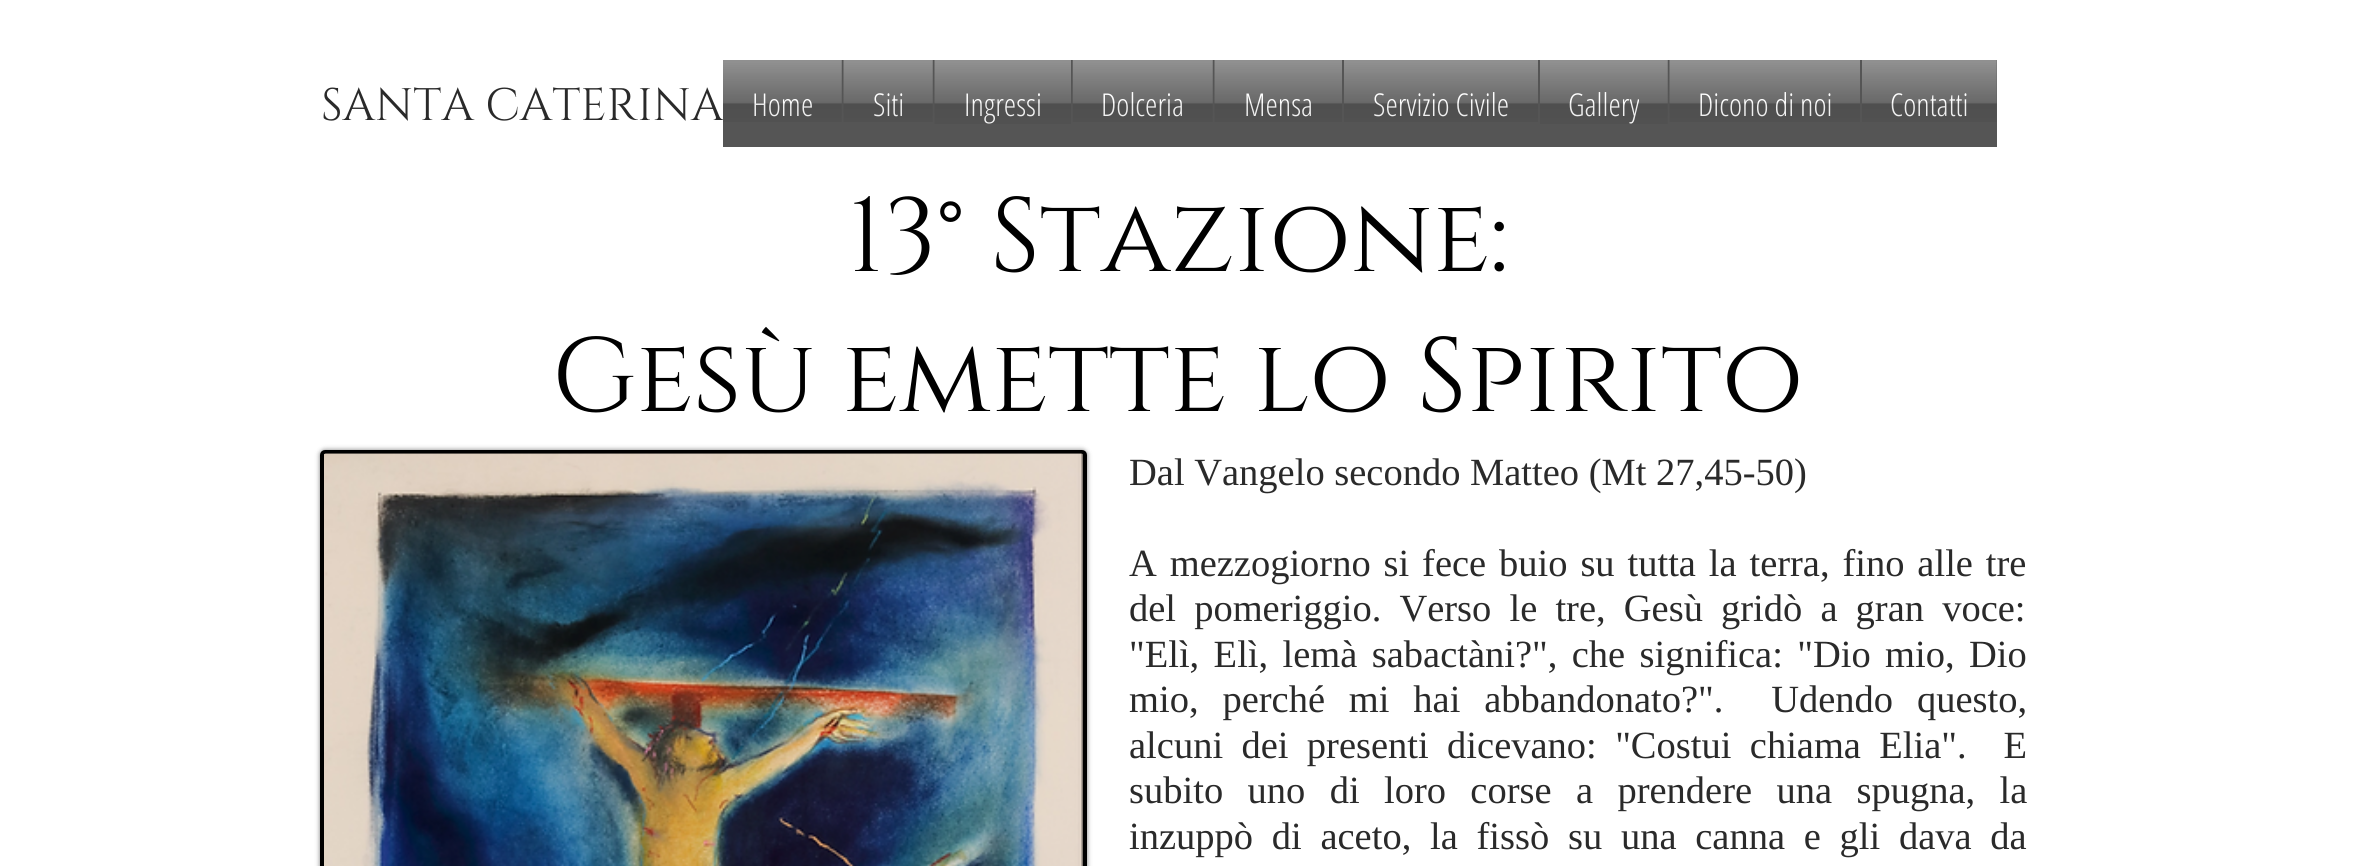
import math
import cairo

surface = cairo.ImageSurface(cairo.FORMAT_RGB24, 2354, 866)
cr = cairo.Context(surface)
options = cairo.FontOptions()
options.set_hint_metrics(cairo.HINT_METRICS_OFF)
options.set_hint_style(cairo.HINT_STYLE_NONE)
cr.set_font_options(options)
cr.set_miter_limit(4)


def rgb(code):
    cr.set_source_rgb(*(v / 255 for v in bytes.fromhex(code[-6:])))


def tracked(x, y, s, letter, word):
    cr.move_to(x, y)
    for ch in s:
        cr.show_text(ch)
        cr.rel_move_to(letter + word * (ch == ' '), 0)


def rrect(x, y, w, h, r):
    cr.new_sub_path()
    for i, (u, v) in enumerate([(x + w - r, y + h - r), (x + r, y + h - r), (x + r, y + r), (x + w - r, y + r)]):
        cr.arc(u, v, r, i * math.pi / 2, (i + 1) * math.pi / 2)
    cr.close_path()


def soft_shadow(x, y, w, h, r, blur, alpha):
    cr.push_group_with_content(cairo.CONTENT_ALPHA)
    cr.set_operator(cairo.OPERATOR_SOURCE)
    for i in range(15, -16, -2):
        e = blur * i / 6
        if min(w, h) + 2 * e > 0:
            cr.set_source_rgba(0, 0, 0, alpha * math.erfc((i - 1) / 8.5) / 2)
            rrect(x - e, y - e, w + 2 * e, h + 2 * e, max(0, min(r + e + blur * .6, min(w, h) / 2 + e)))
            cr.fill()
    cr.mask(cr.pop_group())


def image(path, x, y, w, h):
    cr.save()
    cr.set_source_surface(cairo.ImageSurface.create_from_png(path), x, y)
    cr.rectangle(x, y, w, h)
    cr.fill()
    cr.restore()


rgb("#ffffff")
cr.paint()
rgb("#000000")
soft_shadow(320, 450, 767, 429, 5, 2.5, 0.5)
rgb("#000000")
rrect(322, 452, 763, 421, 3)
cr.fill_preserve()
cr.set_line_width(4)
cr.stroke()
image("img/10.png", 324, 453, 759, 413)
cr.select_font_face("Cinzel")
cr.set_font_size(45.5)
rgb("#2a2a2a")
cr.move_to(321, 120)
cr.show_text("SANTA CATERINA")
rgb("#555555")
cr.rectangle(723, 60, 1274, 87)
cr.fill()
cr.select_font_face("Open Sans Condensed Light")
cr.set_font_size(31.5)
rgb("#ffffff")
cr.move_to(752, 116)
cr.show_text("Home")
image("img/1.png", 723, 60, 119, 62)
cr.move_to(873, 116)
cr.show_text("Siti")
image("img/2.png", 843, 60, 90, 62)
cr.move_to(964, 116)
cr.show_text("Ingressi")
image("img/3.png", 934, 60, 137, 64)
cr.move_to(1101, 116)
cr.show_text("Dolceria")
image("img/4.png", 1072, 60, 141, 62)
cr.move_to(1244, 116)
cr.show_text("Mensa")
image("img/5.png", 1214, 60, 128, 62)
cr.move_to(1373, 116)
cr.show_text("Servizio Civile")
image("img/6.png", 1344, 60, 194, 62)
cr.move_to(1568, 116)
cr.show_text("Gallery")
image("img/7.png", 1540, 60, 128, 64)
cr.move_to(1698, 116)
cr.show_text("Dicono di noi")
image("img/8.png", 1669, 60, 191, 62)
cr.move_to(1890, 116)
cr.show_text("Contatti")
image("img/9.png", 1862, 60, 135, 62)
cr.select_font_face("Cinzel")
cr.set_font_size(105)
rgb("#000000")
cr.move_to(848, 271)
cr.show_text("13° Stazione:")
cr.move_to(552, 411)
cr.show_text("Gesù emette lo Spirito")
cr.select_font_face("Liberation Serif")
cr.set_font_size(38.5)
rgb("#2a2a2a")
cr.move_to(1129, 485)
cr.show_text("Dal Vangelo secondo Matteo (Mt 27,45-50)")
tracked(1129, 576, "A mezzogiorno si fece buio su tutta la terra, fino alle tre", 0, 3.25)
tracked(1129, 621, "del pomeriggio. Verso le tre, Gesù gridò a gran voce:", 0, 8.5)
tracked(1129, 667, "\"Elì, Elì, lemà sabactàni?\", che significa: \"Dio mio, Dio", 0, 4.75)
tracked(1129, 712, "mio, perché mi hai abbandonato?\".  Udendo questo,", 0, 14.25)
tracked(1129, 758, "alcuni dei presenti dicevano: \"Costui chiama Elia\".  E", 0, 8.75)
tracked(1129, 803, "subito uno di loro corse a prendere una spugna, la", 0, 14.75)
tracked(1129, 849, "inzuppò di aceto, la fissò su una canna e gli dava da", 0, 9.1)
surface.write_to_png("page.png")
